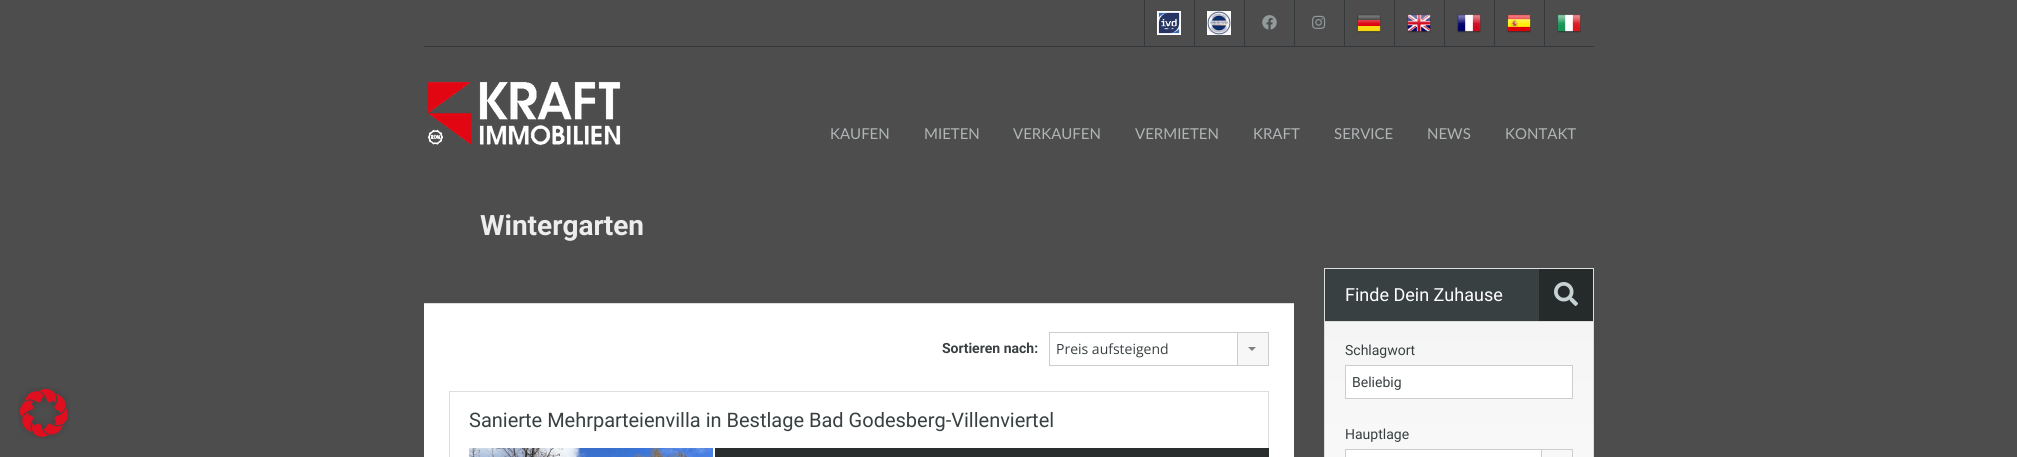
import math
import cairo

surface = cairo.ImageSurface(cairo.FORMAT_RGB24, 2017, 457)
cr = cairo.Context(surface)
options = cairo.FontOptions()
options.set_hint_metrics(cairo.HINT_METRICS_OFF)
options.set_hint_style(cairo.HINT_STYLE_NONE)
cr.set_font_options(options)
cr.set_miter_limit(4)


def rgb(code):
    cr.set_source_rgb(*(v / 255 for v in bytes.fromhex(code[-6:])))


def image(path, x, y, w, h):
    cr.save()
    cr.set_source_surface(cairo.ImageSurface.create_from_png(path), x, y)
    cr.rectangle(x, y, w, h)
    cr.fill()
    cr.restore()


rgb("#4d4d4d")
cr.paint()
rgb("#343a3b")
cr.rectangle(424, 46, 1170, 1)
cr.fill()
cr.rectangle(1144, 0, 1, 46)
cr.fill()
image("img/1.png", 1157, 11, 24, 24)
cr.rectangle(1194, 0, 1, 46)
cr.fill()
image("img/2.png", 1207, 11, 24, 24)
cr.rectangle(1244, 0, 1, 46)
cr.fill()
image("img/3.png", 1262, 15, 15, 15)
cr.rectangle(1294, 0, 1, 46)
cr.fill()
image("img/4.png", 1312, 15, 14, 14)
cr.rectangle(1344, 0, 1, 46)
cr.fill()
image("img/5.png", 1357, 14, 24, 19)
cr.rectangle(1394, 0, 1, 46)
cr.fill()
image("img/6.png", 1407, 14, 24, 19)
cr.rectangle(1444, 0, 1, 46)
cr.fill()
image("img/7.png", 1457, 14, 24, 19)
cr.rectangle(1494, 0, 1, 46)
cr.fill()
image("img/8.png", 1507, 14, 24, 19)
cr.rectangle(1544, 0, 1, 46)
cr.fill()
image("img/9.png", 1557, 14, 24, 19)
image("img/10.png", 427, 80, 194, 67)
image("img/11.png", 18, 387, 52, 52)
rgb("#ffffff")
cr.rectangle(424, 304, 870, 153)
cr.fill()
rgb("#dedede")
cr.rectangle(424, 303, 870, 1)
cr.fill()
cr.rectangle(1049.5, 332.5, 219, 33)
rgb("#cdcdcd")
cr.set_line_width(1)
cr.stroke()
rgb("#f7f7f7")
cr.rectangle(1238, 333, 30, 32)
cr.fill()
rgb("#cdcdcd")
cr.rectangle(1237, 333, 1, 32)
cr.fill()
rgb("#808080")
cr.new_path()
cr.move_to(1248, 347)
cr.line_to(1256, 347)
cr.line_to(1252, 351)
cr.close_path()
cr.fill()
cr.rectangle(449.5, 391.5, 819, 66)
rgb("#dedede")
cr.stroke()
image("img/12.png", 469, 448, 244, 9)
rgb("#292d2d")
cr.rectangle(715, 448, 554, 9)
cr.fill()
cr.rectangle(1324.5, 268.5, 269, 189)
rgb("#dedede")
cr.stroke()
for x, y, w, h, color in [
    (1325, 269, 214, 52, "#394041"),
    (1325, 321, 268, 1, "#dedede"),
    (1539, 269, 54, 52, "#252a2b"),
]:
    rgb(color)
    cr.rectangle(x, y, w, h)
    cr.fill()
image("img/13.png", 1554, 282, 24, 24)
gradient = cairo.LinearGradient(1459, 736, 1459, 322)
gradient.add_color_stop_rgba(0, 1, 1, 1, 1)
gradient.add_color_stop_rgba(1, 0.961, 0.961, 0.961, 1)
cr.set_source(gradient)
cr.rectangle(1325, 322, 268, 135)
cr.fill()
rgb("#ffffff")
cr.rectangle(1345.5, 365.5, 227, 33)
cr.fill_preserve()
rgb("#cdcdcd")
cr.stroke()
rgb("#ffffff")
cr.rectangle(1345, 450, 196, 7)
cr.fill()
cr.rectangle(1345.5, 449.5, 227, 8)
rgb("#cdcdcd")
cr.stroke()
cr.rectangle(1541, 450, 1, 7)
cr.fill()
cr.select_font_face("Lato")
cr.set_font_size(15)
rgb("#afb4b5")
for x, y, s in [
    (830, 139, "KAUFEN"),
    (924, 139, "MIETEN"),
    (1013, 139, "VERKAUFEN"),
    (1135, 139, "VERMIETEN"),
    (1253, 139, "KRAFT"),
    (1334, 139, "SERVICE"),
    (1427, 139, "NEWS"),
    (1505, 139, "KONTAKT"),
]:
    cr.move_to(x, y)
    cr.show_text(s)
cr.select_font_face("Roboto", cairo.FONT_SLANT_NORMAL, cairo.FONT_WEIGHT_BOLD)
cr.set_font_size(28)
rgb("#ededed")
cr.move_to(480, 235)
cr.show_text("Wintergarten")
cr.set_font_size(14)
rgb("#394041")
cr.move_to(942, 353)
cr.show_text("Sortieren nach:")
cr.select_font_face("Open Sans")
cr.move_to(1056, 354)
cr.show_text("Preis aufsteigend")
cr.select_font_face("Roboto")
cr.set_font_size(20)
cr.move_to(469, 427)
cr.show_text("Sanierte Mehrparteienvilla in Bestlage Bad Godesberg-Villenviertel")
cr.set_font_size(18)
rgb("#ffffff")
cr.move_to(1345, 301)
cr.show_text("Finde Dein Zuhause")
cr.set_font_size(14)
rgb("#394041")
for x, y, s in [
    (1345, 355, "Schlagwort"),
    (1352, 387, "Beliebig"),
    (1345, 439, "Hauptlage"),
]:
    cr.move_to(x, y)
    cr.show_text(s)
surface.write_to_png("page.png")
